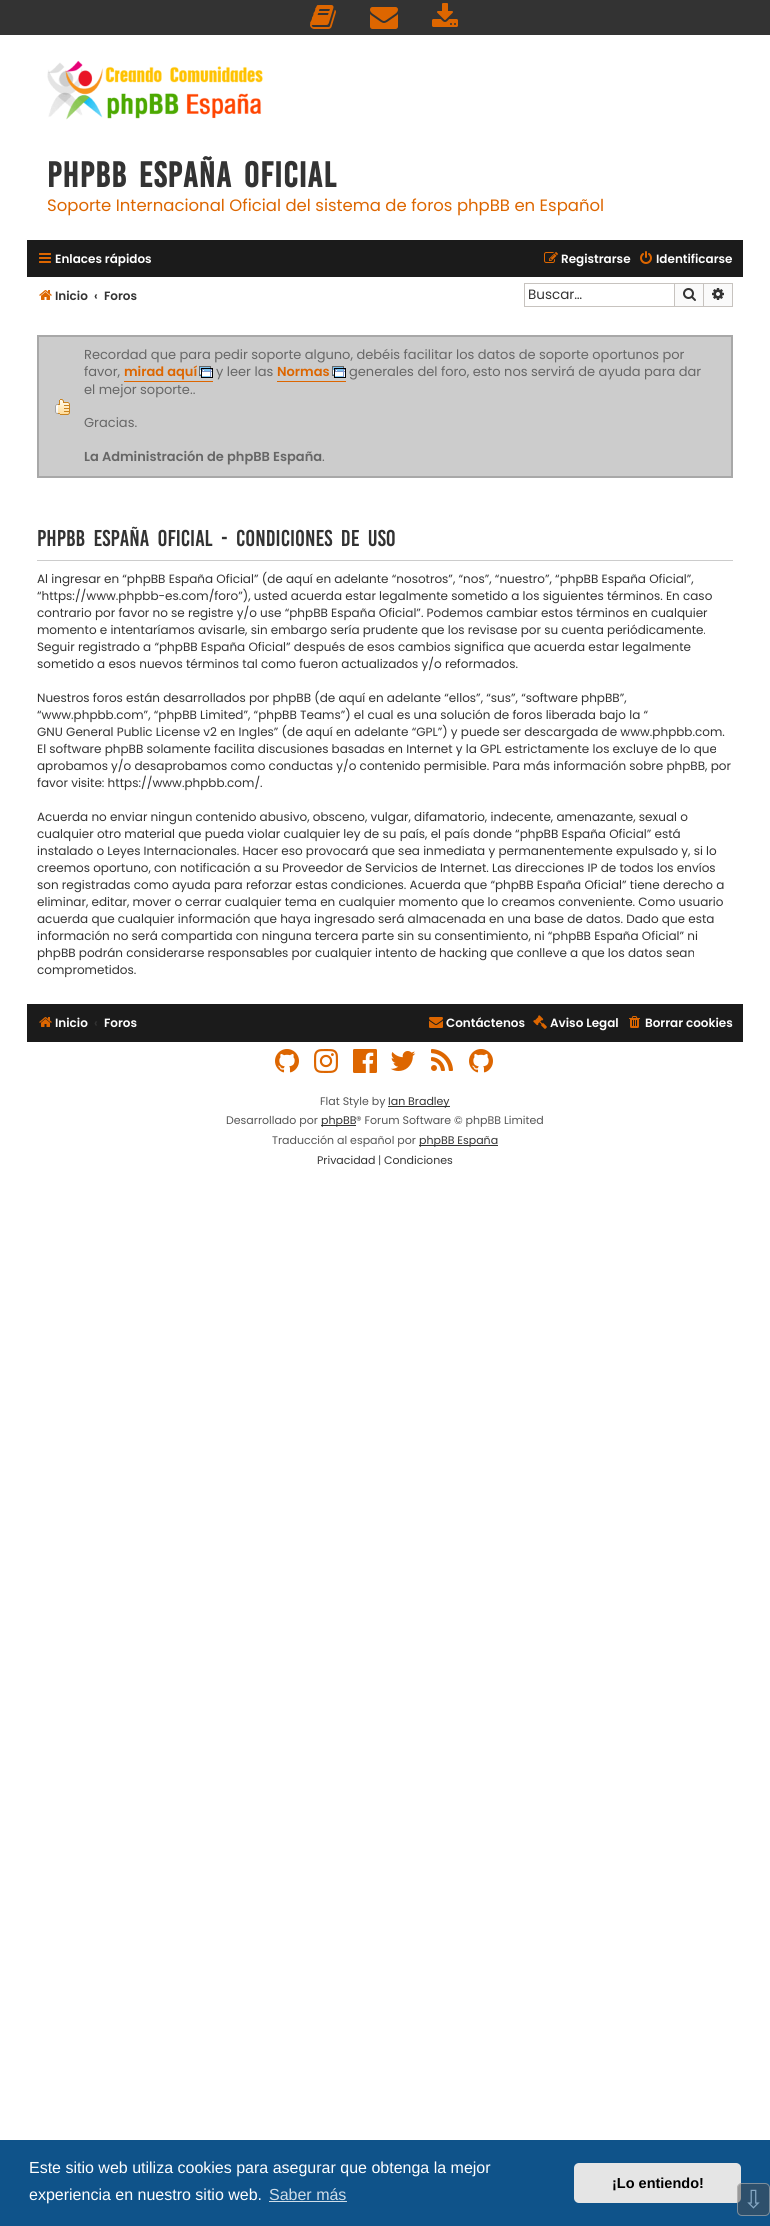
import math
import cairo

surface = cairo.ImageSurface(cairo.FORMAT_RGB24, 770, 2226)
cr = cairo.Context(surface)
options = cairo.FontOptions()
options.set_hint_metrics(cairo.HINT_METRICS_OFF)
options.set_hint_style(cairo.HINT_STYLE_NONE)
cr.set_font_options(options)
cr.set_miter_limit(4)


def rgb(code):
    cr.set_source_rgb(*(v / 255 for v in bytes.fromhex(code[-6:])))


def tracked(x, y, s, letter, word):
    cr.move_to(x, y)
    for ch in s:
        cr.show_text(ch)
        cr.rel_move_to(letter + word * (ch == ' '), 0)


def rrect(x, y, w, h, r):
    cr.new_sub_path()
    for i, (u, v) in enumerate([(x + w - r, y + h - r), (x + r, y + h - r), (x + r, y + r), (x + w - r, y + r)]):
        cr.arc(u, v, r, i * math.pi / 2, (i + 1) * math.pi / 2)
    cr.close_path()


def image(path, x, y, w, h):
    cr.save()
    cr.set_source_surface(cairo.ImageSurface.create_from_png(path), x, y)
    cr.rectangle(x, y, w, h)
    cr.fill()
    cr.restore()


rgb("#ffffff")
cr.paint()
rgb("#333333")
cr.rectangle(0, 0, 770, 35)
cr.fill()
image("img/1.png", 310, 5, 26, 24)
image("img/2.png", 370, 7, 28, 22)
image("img/3.png", 432, 3, 26, 24)
image("img/4.png", 47, 60, 216, 60)
rgb("#1b1b1b")
cr.rectangle(27, 240, 716, 37)
cr.fill()
image("img/5.png", 39, 253, 12, 10)
image("img/6.png", 544, 252, 14, 11)
image("img/7.png", 640, 251, 12, 13)
image("img/8.png", 39, 290, 13, 10)
for x, y, w, h, color in [
    (524, 283, 150, 1, "#c7c3bf"),
    (524, 306, 150, 1, "#c7c3bf"),
    (524, 283, 1, 24, "#c7c3bf"),
]:
    rgb(color)
    cr.rectangle(x, y, w, h)
    cr.fill()
rgb("#fafafa")
cr.rectangle(674.5, 283.5, 29, 23)
cr.fill_preserve()
rgb("#c7c3bf")
cr.set_line_width(1)
cr.stroke()
image("img/9.png", 683, 288, 13, 13)
for x, y, w, h, color in [
    (704, 284, 28, 22, "#fafafa"),
    (704, 283, 29, 1, "#c7c3bf"),
    (732, 283, 1, 24, "#c7c3bf"),
    (704, 306, 29, 1, "#c7c3bf"),
]:
    rgb(color)
    cr.rectangle(x, y, w, h)
    cr.fill()
image("img/10.png", 712, 288, 12, 12)
rgb("#cccccc")
cr.rectangle(39, 337, 692, 139)
cr.fill()
image("img/11.png", 55, 399, 15, 16)
cr.rectangle(38, 336, 694, 141)
rgb("#a8a8a8")
cr.set_line_width(2)
cr.stroke()
image("img/12.png", 199, 366, 14, 12)
rgb("#dd6600")
cr.rectangle(124, 381, 89, 1)
cr.fill()
image("img/12.png", 332, 366, 14, 12)
for x, y, w, h, color in [
    (277, 381, 69, 1, "#dd6600"),
    (37, 560, 696, 1, "#cccccc"),
    (27, 1004, 716, 38, "#1b1b1b"),
]:
    rgb(color)
    cr.rectangle(x, y, w, h)
    cr.fill()
image("img/13.png", 39, 1017, 13, 10)
image("img/14.png", 429, 1017, 14, 11)
image("img/15.png", 533, 1015, 14, 14)
image("img/16.png", 629, 1016, 11, 12)
image("img/17.png", 275, 1049, 24, 24)
image("img/18.png", 314, 1049, 24, 24)
image("img/19.png", 353, 1049, 24, 24)
image("img/20.png", 390, 1051, 26, 20)
image("img/21.png", 431, 1049, 22, 22)
image("img/17.png", 469, 1049, 24, 24)
for x, y, w, h, color in [
    (388, 1106, 62, 1, "#333333"),
    (321, 1125, 35, 1, "#333333"),
    (419, 1145, 79, 1, "#333333"),
    (0, 2140, 770, 86, "#0f538a"),
    (269, 2201, 78, 1, "#cfdde8"),
]:
    rgb(color)
    cr.rectangle(x, y, w, h)
    cr.fill()
rgb("#e5e5e5")
rrect(574, 2163, 167, 40, 5)
cr.fill()
cr.set_source_rgba(0.31, 0.31, 0.31, 0.5)
rrect(737, 2183, 33, 33, 5)
cr.fill()
rrect(737.5, 2183.5, 32, 32, 4.5)
cr.set_source_rgba(0.8, 0.8, 0.8, 0.5)
cr.set_line_width(1)
cr.stroke()
cr.select_font_face("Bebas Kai", cairo.FONT_SLANT_NORMAL, cairo.FONT_WEIGHT_BOLD)
cr.set_font_size(27.5)
rgb("#333333")
tracked(47, 187, "phpBB España Oficial", 1, 4)
cr.select_font_face("Poppins")
cr.set_font_size(16.5)
rgb("#dd6600")
cr.move_to(47, 211)
cr.show_text("Soporte Internacional Oficial del sistema de foros phpBB en Español")
cr.select_font_face("Poppins SemiBold")
cr.set_font_size(12)
rgb("#ffffff")
for x, y, s in [
    (55, 263, "Enlaces rápidos"),
    (561, 263, "Registrarse"),
    (656, 263, "Identificarse"),
]:
    cr.move_to(x, y)
    cr.show_text(s)
rgb("#333333")
for x, y, s in [
    (55, 300, "Inicio"),
    (94, 300, "‹"),
    (104, 300, "Foros"),
]:
    cr.move_to(x, y)
    cr.show_text(s)
cr.select_font_face("Poppins")
cr.set_font_size(13.5)
cr.move_to(528, 299)
cr.show_text("Buscar…")
cr.set_font_size(13)
rgb("#666666")
cr.move_to(84, 359)
cr.show_text("Recordad que para pedir soporte alguno, debéis facilitar los datos de soporte oportunos por")
cr.move_to(84, 376)
cr.show_text("favor,")
cr.select_font_face("Poppins SemiBold")
rgb("#dd6600")
cr.move_to(124, 376)
cr.show_text("mirad aquí")
cr.select_font_face("Poppins")
rgb("#666666")
cr.move_to(216, 376)
cr.show_text("y leer las")
cr.select_font_face("Poppins SemiBold")
rgb("#dd6600")
cr.move_to(277, 376)
cr.show_text("Normas")
cr.select_font_face("Poppins")
rgb("#666666")
for x, y, s in [
    (349, 376, "generales del foro, esto nos servirá de ayuda para dar"),
    (84, 394, "el mejor soporte.."),
    (84, 427, "Gracias."),
]:
    cr.move_to(x, y)
    cr.show_text(s)
cr.select_font_face("Poppins SemiBold")
cr.move_to(84, 461)
cr.show_text("La Administración de phpBB España")
cr.select_font_face("Poppins")
cr.move_to(322, 461)
cr.show_text(".")
cr.select_font_face("Bebas Kai")
cr.set_font_size(17.6)
rgb("#333333")
tracked(37, 546, "phpBB España Oficial - Condiciones de uso", 0, 4)
cr.select_font_face("Poppins")
cr.set_font_size(12)
for x, y, s in [
    (37, 583, "Al ingresar en “phpBB España Oficial” (de aquí en adelante “nosotros”, “nos”, “nuestro”, “phpBB España Oficial”,"),
    (37, 600, "“https://www.phpbb-es.com/foro”), usted acuerda estar legalmente sometido a los siguientes términos. En caso"),
    (37, 617, "contrario por favor no se registre y/o use “phpBB España Oficial”. Podemos cambiar estos términos en cualquier"),
    (37, 634, "momento e intentaríamos avisarle, sin embargo sería prudente que los revisase por su cuenta periódicamente."),
    (37, 651, "Seguir registrado a “phpBB España Oficial” después de esos cambios significa que acuerda estar legalmente"),
    (37, 668, "sometido a esos nuevos términos tal como fueron actualizados y/o reformados."),
    (37, 702, "Nuestros foros están desarrollados por phpBB (de aquí en adelante “ellos”, “sus”, “software phpBB”,"),
    (37, 719, "“www.phpbb.com”, “phpBB Limited”, “phpBB Teams”) el cual es una solución de foros liberada bajo la “"),
    (37, 736, "GNU General Public License v2 en Ingles” (de aquí en adelante “GPL”) y puede ser descargada de www.phpbb.com."),
    (37, 753, "El software phpBB solamente facilita discusiones basadas en Internet y la GPL estrictamente los excluye de lo que"),
    (37, 770, "aprobamos y/o desaprobamos como conductas y/o contenido permisible. Para más información sobre phpBB, por"),
    (37, 787, "favor visite: https://www.phpbb.com/."),
    (37, 821, "Acuerda no enviar ningun contenido abusivo, obsceno, vulgar, difamatorio, indecente, amenazante, sexual o"),
    (37, 838, "cualquier otro material que pueda violar cualquier ley de su país, el país donde “phpBB España Oficial” está"),
    (37, 855, "instalado o Leyes Internacionales. Hacer eso provocará que sea inmediata y permanentemente expulsado y, si lo"),
    (37, 872, "creemos oportuno, con notificación a su Proveedor de Servicios de Internet. Las direcciones IP de todos los envíos"),
    (37, 889, "son registradas como ayuda para reforzar estas condiciones. Acuerda que “phpBB España Oficial” tiene derecho a"),
    (37, 906, "eliminar, editar, mover o cerrar cualquier tema en cualquier momento que lo creamos conveniente. Como usuario"),
    (37, 923, "acuerda que cualquier información que haya ingresado será almacenada en una base de datos. Dado que esta"),
    (37, 940, "información no será compartida con ninguna tercera parte sin su consentimiento, ni “phpBB España Oficial” ni"),
    (37, 957, "phpBB podrán considerarse responsables por cualquier intento de hacking que conlleve a que los datos sean"),
    (37, 974, "comprometidos."),
]:
    cr.move_to(x, y)
    cr.show_text(s)
cr.select_font_face("Poppins SemiBold")
rgb("#ffffff")
cr.move_to(55, 1027)
cr.show_text("Inicio")
rgb("#333333")
cr.move_to(94, 1027)
cr.show_text("‹")
rgb("#ffffff")
for x, y, s in [
    (104, 1027, "Foros"),
    (446, 1027, "Contáctenos"),
    (550, 1027, "Aviso Legal"),
    (645, 1027, "Borrar cookies"),
]:
    cr.move_to(x, y)
    cr.show_text(s)
cr.select_font_face("Poppins")
cr.set_font_size(11)
rgb("#555555")
cr.move_to(320, 1105)
cr.show_text("Flat Style by")
rgb("#333333")
cr.move_to(388, 1105)
cr.show_text("Ian Bradley")
rgb("#555555")
cr.move_to(226, 1124)
cr.show_text("Desarrollado por")
rgb("#333333")
cr.move_to(321, 1124)
cr.show_text("phpBB")
rgb("#555555")
cr.move_to(356, 1124)
cr.show_text("® Forum Software © phpBB Limited")
cr.move_to(272, 1144)
cr.show_text("Traducción al español por")
rgb("#333333")
cr.move_to(419, 1144)
cr.show_text("phpBB España")
cr.move_to(317, 1164)
cr.show_text("Privacidad")
rgb("#555555")
cr.move_to(378, 1164)
cr.show_text("|")
rgb("#333333")
cr.move_to(384, 1164)
cr.show_text("Condiciones")
cr.select_font_face("Liberation Sans")
cr.set_font_size(16)
rgb("#ffffff")
cr.move_to(29, 2173)
cr.show_text("Este sitio web utiliza cookies para asegurar que obtenga la mejor")
cr.move_to(29, 2200)
cr.show_text("experiencia en nuestro sitio web.")
rgb("#cfdde8")
cr.move_to(269, 2200)
cr.show_text("Saber más")
cr.select_font_face("Liberation Sans", cairo.FONT_SLANT_NORMAL, cairo.FONT_WEIGHT_BOLD)
cr.set_font_size(14.5)
rgb("#000000")
cr.move_to(612, 2188)
cr.show_text("¡Lo entiendo!")
cr.select_font_face("DejaVu Sans")
cr.set_font_size(25)
rgb("#87a9c5")
cr.move_to(743, 2208)
cr.show_text("⇩")
surface.write_to_png("page.png")
